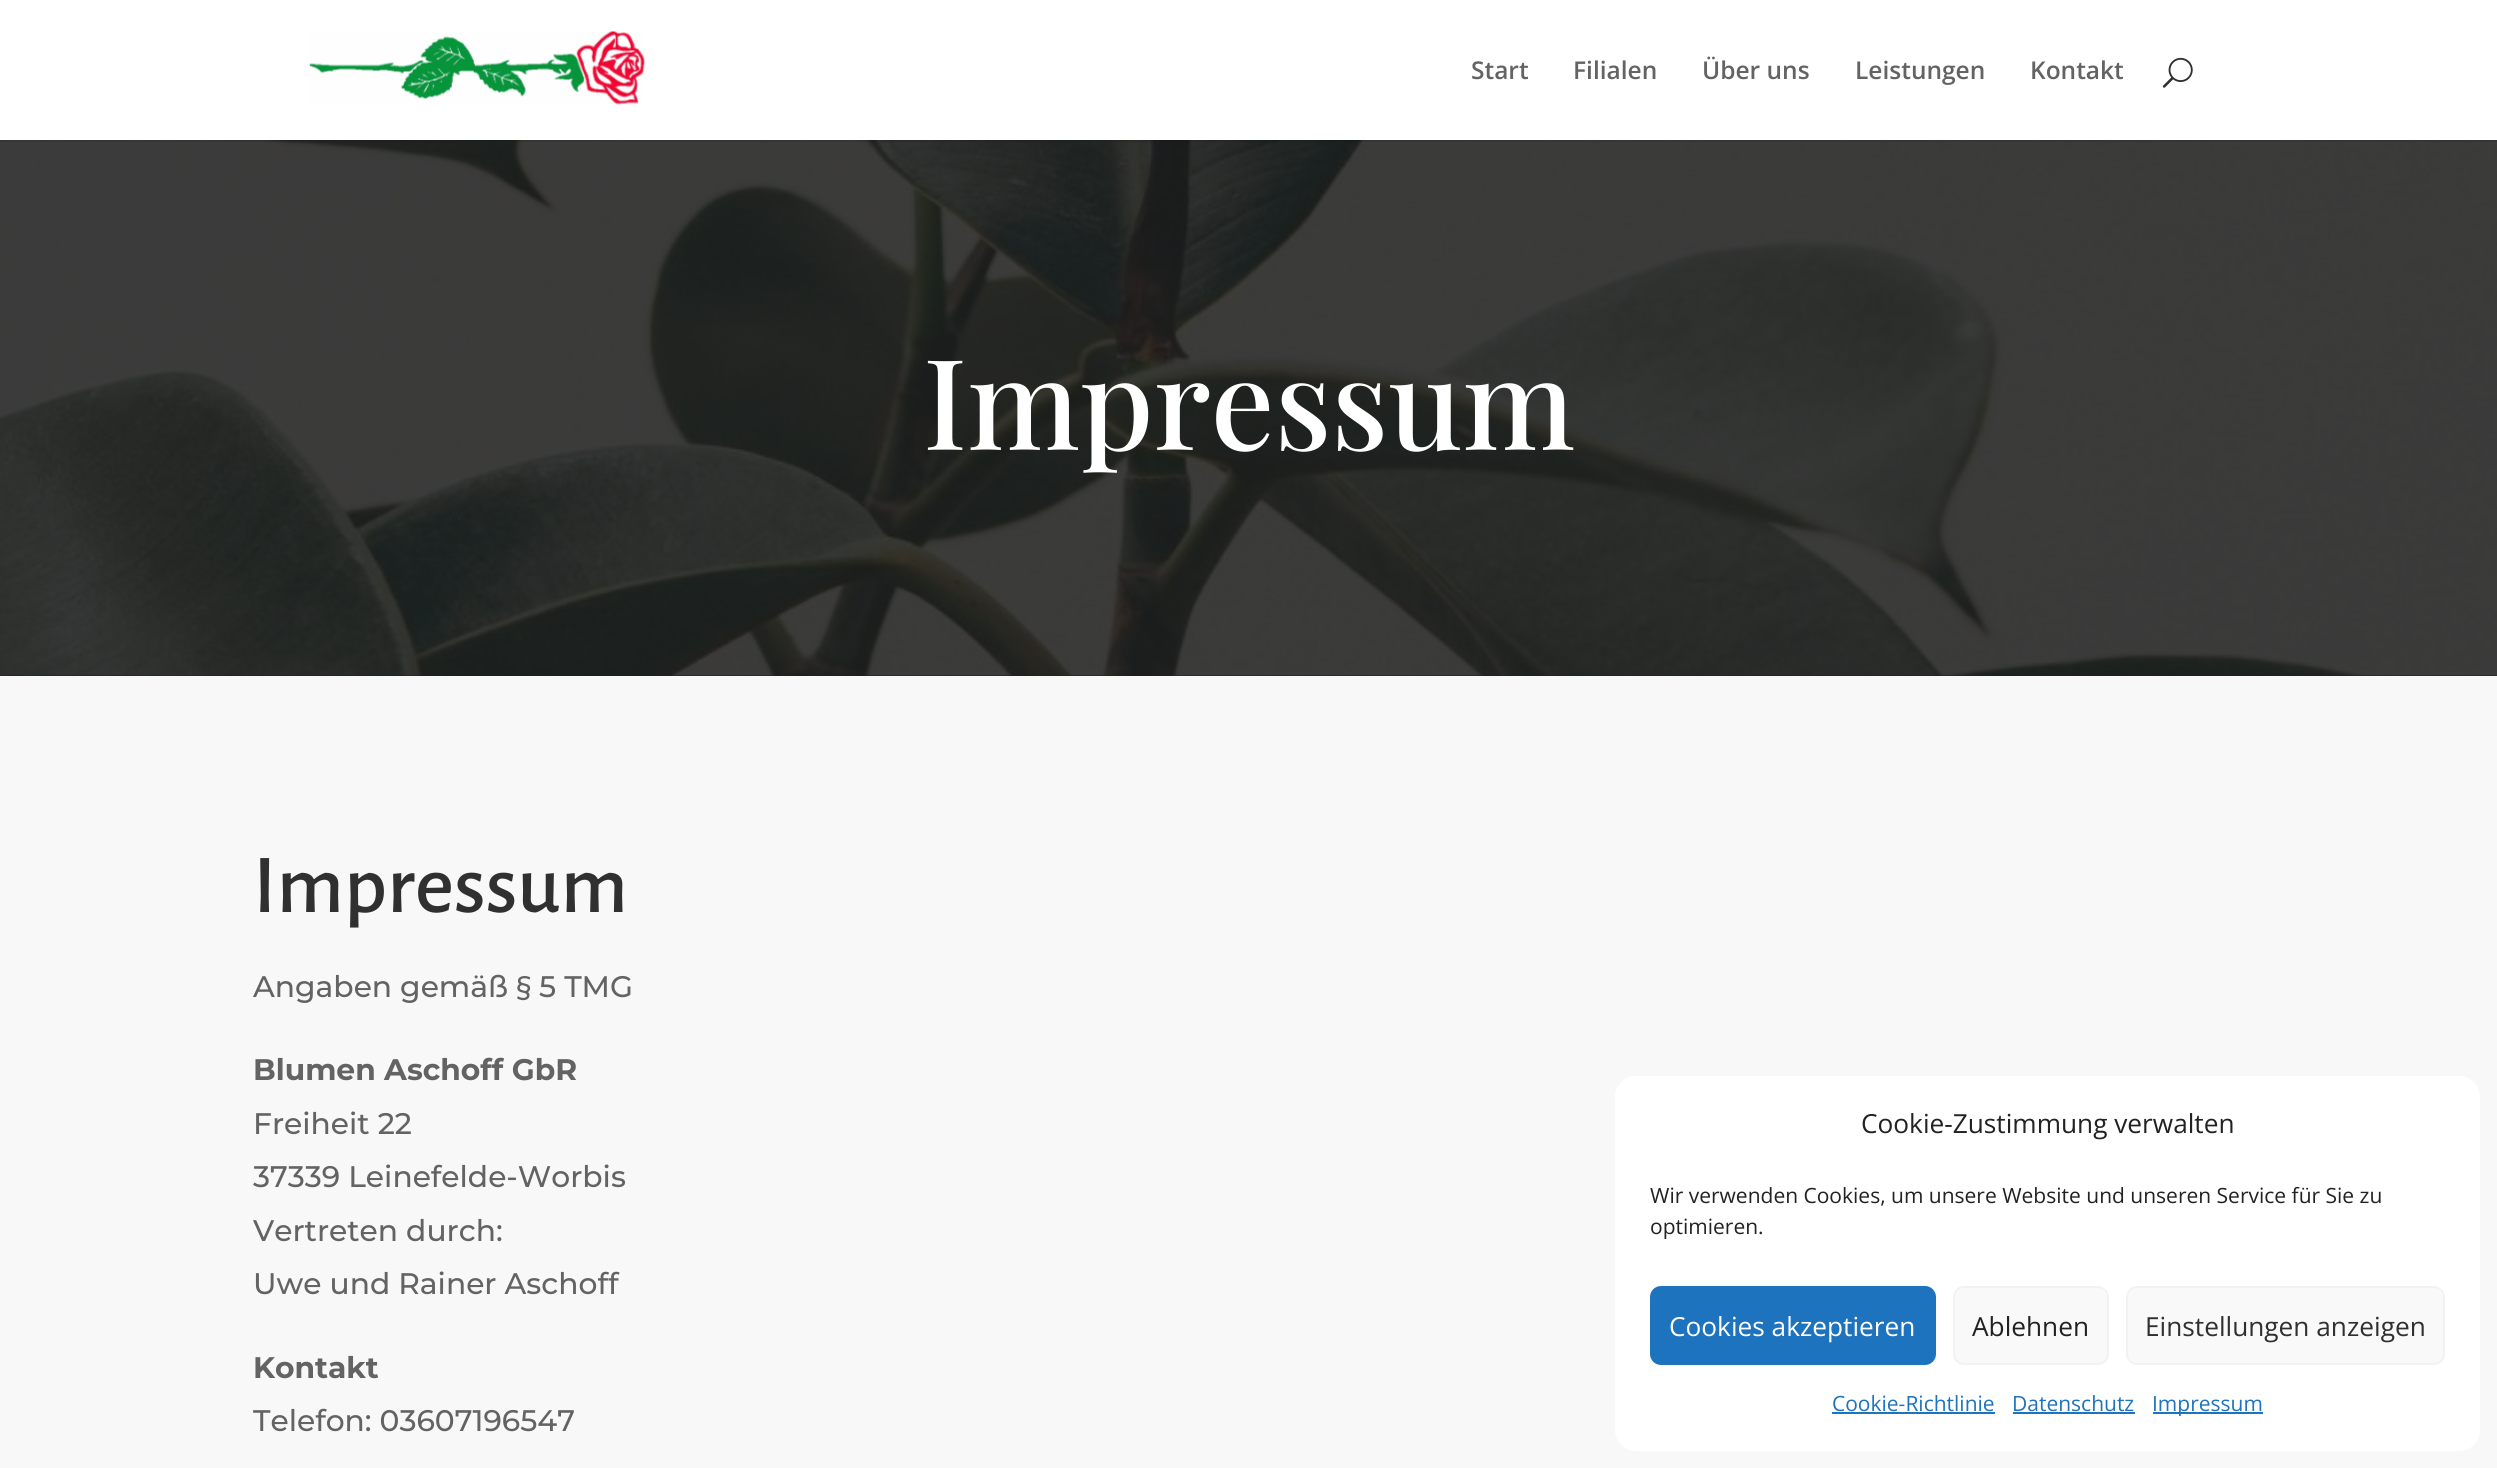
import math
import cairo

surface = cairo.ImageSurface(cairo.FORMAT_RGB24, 2497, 1468)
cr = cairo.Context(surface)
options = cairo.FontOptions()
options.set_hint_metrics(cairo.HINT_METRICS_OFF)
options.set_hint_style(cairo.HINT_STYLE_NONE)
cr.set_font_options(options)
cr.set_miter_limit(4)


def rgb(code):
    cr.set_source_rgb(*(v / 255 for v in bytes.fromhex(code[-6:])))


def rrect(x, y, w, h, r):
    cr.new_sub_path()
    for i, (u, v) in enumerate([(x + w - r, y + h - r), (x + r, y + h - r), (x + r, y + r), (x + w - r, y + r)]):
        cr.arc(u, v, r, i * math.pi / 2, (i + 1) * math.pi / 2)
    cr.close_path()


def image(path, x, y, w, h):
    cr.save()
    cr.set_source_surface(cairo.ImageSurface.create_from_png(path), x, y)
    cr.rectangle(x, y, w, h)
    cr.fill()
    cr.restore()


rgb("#ffffff")
cr.paint()
rgb("#1f1f1f")
cr.rectangle(0, 675, 2497, 1)
cr.fill()
image("img/3.png", 0, 140, 2497, 536)
cr.set_source_rgba(0, 0, 0, 0.1)
cr.rectangle(0, 140, 2497, 2)
cr.fill()
image("img/1.png", 309, 31, 336, 74)
image("img/2.png", 2162, 57, 31, 31)
rgb("#f8f8f8")
cr.rectangle(0, 676, 2497, 792)
cr.fill()
rgb("#ffffff")
rrect(1615, 1076, 865, 375, 21)
cr.fill()
rgb("#1e73be")
rrect(1651, 1287, 284, 77, 10)
cr.fill_preserve()
cr.stroke()
rgb("#f9f9f9")
rrect(1954, 1287, 154, 77, 10)
cr.fill_preserve()
rgb("#f2f2f2")
cr.stroke()
rgb("#f9f9f9")
rrect(2127, 1287, 317, 77, 10)
cr.fill_preserve()
rgb("#f2f2f2")
cr.stroke()
for x, y, w, h, color in [
    (1832, 1412, 163, 2, "#1e73be"),
    (2013, 1412, 122, 2, "#1e73be"),
    (2153, 1412, 110, 2, "#1e73be"),
]:
    rgb(color)
    cr.rectangle(x, y, w, h)
    cr.fill()
cr.select_font_face("Open Sans SemiBold")
cr.set_font_size(24.5)
rgb("#636363")
for x, y, s in [
    (1471, 79, "Start"),
    (1573, 79, "Filialen"),
    (1702, 79, "Über uns"),
    (1855, 79, "Leistungen"),
    (2030, 79, "Kontakt"),
]:
    cr.move_to(x, y)
    cr.show_text(s)
cr.select_font_face("Playfair Display Medium")
cr.set_font_size(126)
rgb("#ffffff")
cr.move_to(923, 450)
cr.show_text("Impressum")
cr.select_font_face("Alegreya Sans Medium")
cr.set_font_size(84)
rgb("#303030")
cr.move_to(253, 912)
cr.show_text("Impressum")
cr.select_font_face("Montserrat Medium")
cr.set_font_size(29.75)
rgb("#636363")
cr.move_to(253, 997)
cr.show_text("Angaben gemäß § 5 TMG")
cr.select_font_face("Montserrat", cairo.FONT_SLANT_NORMAL, cairo.FONT_WEIGHT_BOLD)
cr.move_to(253, 1080)
cr.show_text("Blumen Aschoff GbR")
cr.select_font_face("Montserrat Medium")
for x, y, s in [
    (253, 1134, "Freiheit 22"),
    (253, 1187, "37339 Leinefelde-Worbis"),
    (253, 1241, "Vertreten durch:"),
    (253, 1294, "Uwe und Rainer Aschoff"),
]:
    cr.move_to(x, y)
    cr.show_text(s)
cr.select_font_face("Montserrat", cairo.FONT_SLANT_NORMAL, cairo.FONT_WEIGHT_BOLD)
cr.move_to(253, 1378)
cr.show_text("Kontakt")
cr.select_font_face("Montserrat Medium")
cr.move_to(253, 1431)
cr.show_text("Telefon: 03607196547")
cr.select_font_face("Open Sans")
cr.set_font_size(26.25)
rgb("#222222")
cr.move_to(1861, 1133)
cr.show_text("Cookie-Zustimmung verwalten")
cr.set_font_size(21)
cr.move_to(1650, 1203)
cr.show_text("Wir verwenden Cookies, um unsere Website und unseren Service für Sie zu")
cr.move_to(1650, 1234)
cr.show_text("optimieren.")
cr.set_font_size(26.25)
rgb("#ffffff")
cr.move_to(1669, 1336)
cr.show_text("Cookies akzeptieren")
rgb("#222222")
cr.move_to(1972, 1336)
cr.show_text("Ablehnen")
rgb("#303030")
cr.move_to(2145, 1336)
cr.show_text("Einstellungen anzeigen")
cr.set_font_size(21)
rgb("#1e73be")
for x, y, s in [
    (1832, 1411, "Cookie-Richtlinie"),
    (2012, 1411, "Datenschutz"),
    (2152, 1411, "Impressum"),
]:
    cr.move_to(x, y)
    cr.show_text(s)
surface.write_to_png("page.png")
